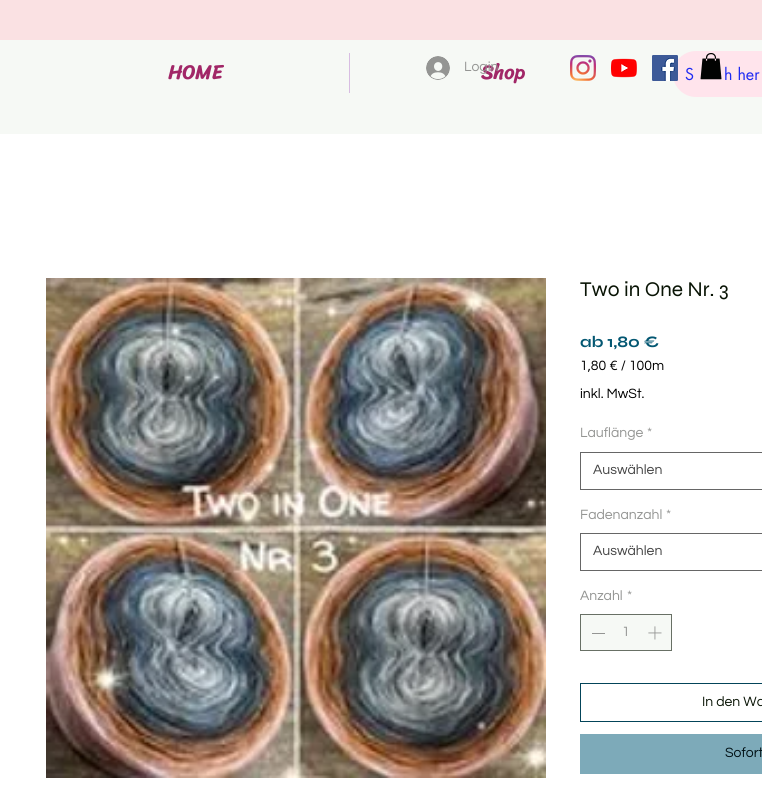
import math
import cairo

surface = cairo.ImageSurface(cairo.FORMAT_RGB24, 762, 799)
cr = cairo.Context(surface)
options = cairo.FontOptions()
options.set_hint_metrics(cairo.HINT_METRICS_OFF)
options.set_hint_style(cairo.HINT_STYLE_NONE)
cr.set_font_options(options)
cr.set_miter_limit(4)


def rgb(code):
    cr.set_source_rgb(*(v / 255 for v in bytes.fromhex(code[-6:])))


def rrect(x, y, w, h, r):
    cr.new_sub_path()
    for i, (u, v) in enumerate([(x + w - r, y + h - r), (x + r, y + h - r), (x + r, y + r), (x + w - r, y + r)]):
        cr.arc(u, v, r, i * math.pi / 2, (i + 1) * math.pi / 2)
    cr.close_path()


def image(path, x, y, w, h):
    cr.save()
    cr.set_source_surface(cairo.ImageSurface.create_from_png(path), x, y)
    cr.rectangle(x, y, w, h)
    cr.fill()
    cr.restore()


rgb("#f6f9f5")
cr.paint()
image("img/1.png", 426, 56, 24, 24)
image("img/2.png", 570, 55, 26, 26)
image("img/3.png", 611, 58, 26, 20)
rgb("#ffe4ec")
rrect(673, 51, 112, 46, 23)
cr.fill()
image("img/4.png", 652, 55, 26, 26)
image("img/5.png", 700, 53, 22, 27)
for x, y, w, h, color in [
    (0, 0, 762, 40, "#fae1e3"),
    (349, 53, 1, 40, "#d8bde2"),
    (0, 134, 762, 665, "#ffffff"),
]:
    rgb(color)
    cr.rectangle(x, y, w, h)
    cr.fill()
image("img/6.png", 46, 278, 500, 500)
cr.rectangle(580.5, 452.5, 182, 37)
rgb("#666666")
cr.set_line_width(1)
cr.stroke()
cr.rectangle(580.5, 533.5, 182, 37)
cr.stroke()
rgb("#f6f9f5")
cr.rectangle(580.5, 614.5, 91, 36)
cr.fill_preserve()
rgb("#687065")
cr.stroke()
rgb("#949593")
cr.rectangle(592, 633, 13, 1)
cr.fill()
image("img/7.png", 648, 626, 14, 14)
cr.rectangle(580.5, 683.5, 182, 38)
rgb("#034459")
cr.stroke()
rgb("#7daab9")
cr.rectangle(580, 734, 182, 40)
cr.fill()
cr.select_font_face("Sriracha", cairo.FONT_SLANT_NORMAL, cairo.FONT_WEIGHT_BOLD)
cr.set_font_size(20)
rgb("#a12767")
cr.move_to(168, 79)
cr.show_text("HOME")
cr.move_to(481, 79)
cr.show_text("Shop")
cr.select_font_face("Questrial")
cr.set_font_size(14)
rgb("#949593")
cr.move_to(464, 71)
cr.show_text("Login")
cr.select_font_face("futura")
cr.set_font_size(16)
rgb("#1f2bf3")
cr.move_to(685, 80)
cr.show_text("S")
cr.move_to(724, 80)
cr.show_text("h her")
cr.select_font_face("Syne")
cr.set_font_size(21)
rgb("#091405")
cr.move_to(580, 296)
cr.show_text("Two in One Nr. 3")
cr.select_font_face("Syne", cairo.FONT_SLANT_NORMAL, cairo.FONT_WEIGHT_BOLD)
cr.set_font_size(16)
rgb("#035772")
cr.move_to(580, 347)
cr.show_text("ab 1,80 €")
cr.select_font_face("Questrial")
cr.set_font_size(14)
rgb("#000000")
cr.move_to(580, 370)
cr.show_text("1,80 € / 100m")
cr.move_to(580, 398)
cr.show_text("inkl. MwSt.")
rgb("#949593")
cr.move_to(580, 437)
cr.show_text("Lauflänge")
cr.move_to(647, 437)
cr.show_text("*")
rgb("#444444")
cr.move_to(593, 474)
cr.show_text("Auswählen")
rgb("#949593")
cr.move_to(580, 519)
cr.show_text("Fadenanzahl")
cr.move_to(666, 519)
cr.show_text("*")
rgb("#444444")
cr.move_to(593, 555)
cr.show_text("Auswählen")
rgb("#949593")
for x, y, s in [
    (580, 600, "Anzahl"),
    (627, 600, "*"),
    (622, 636, "1"),
]:
    cr.move_to(x, y)
    cr.show_text(s)
rgb("#091405")
cr.move_to(702, 706)
cr.show_text("In den Wa")
rgb("#011014")
cr.move_to(725, 757)
cr.show_text("Sofort")
surface.write_to_png("page.png")
